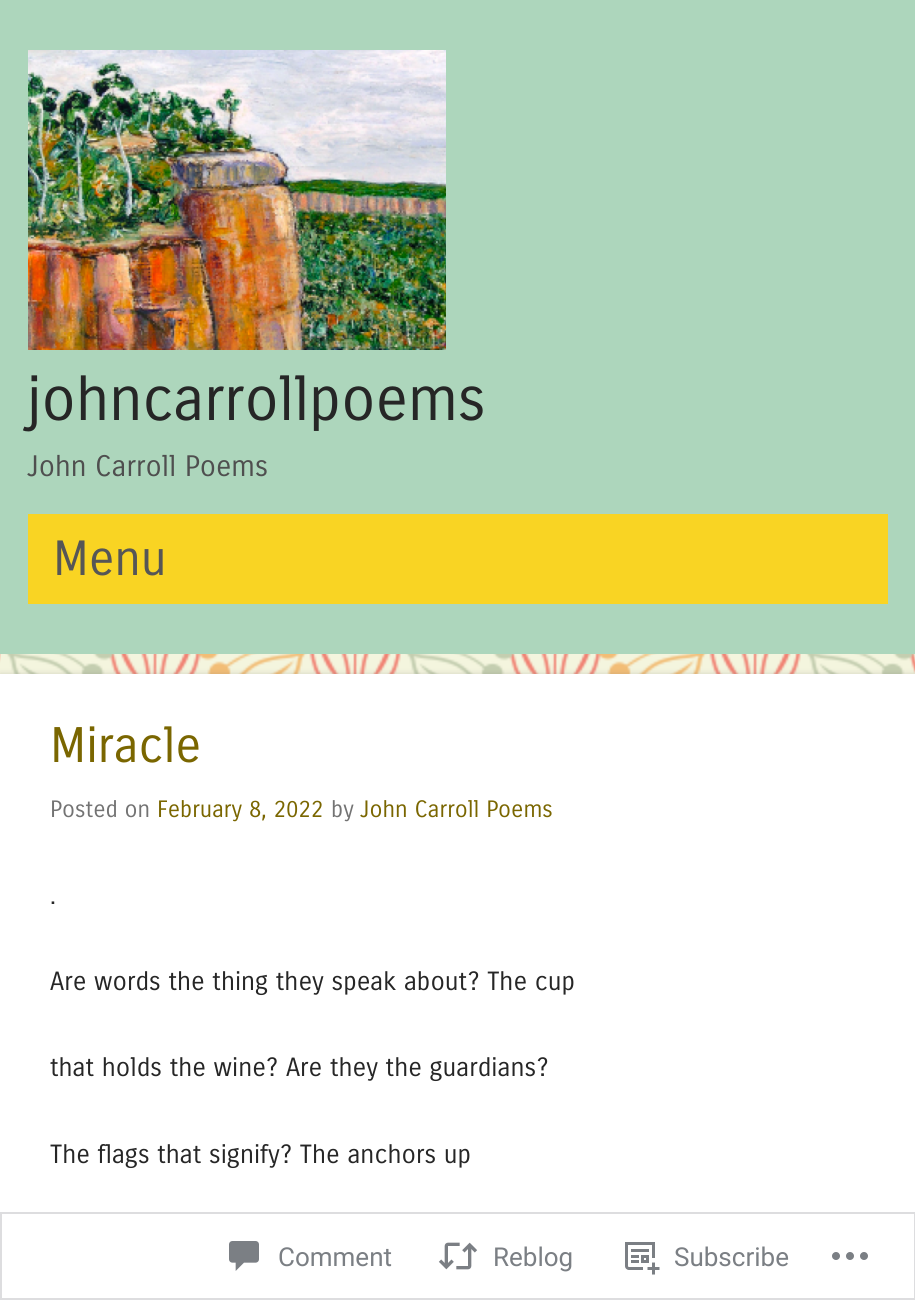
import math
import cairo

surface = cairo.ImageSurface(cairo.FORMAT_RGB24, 915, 1300)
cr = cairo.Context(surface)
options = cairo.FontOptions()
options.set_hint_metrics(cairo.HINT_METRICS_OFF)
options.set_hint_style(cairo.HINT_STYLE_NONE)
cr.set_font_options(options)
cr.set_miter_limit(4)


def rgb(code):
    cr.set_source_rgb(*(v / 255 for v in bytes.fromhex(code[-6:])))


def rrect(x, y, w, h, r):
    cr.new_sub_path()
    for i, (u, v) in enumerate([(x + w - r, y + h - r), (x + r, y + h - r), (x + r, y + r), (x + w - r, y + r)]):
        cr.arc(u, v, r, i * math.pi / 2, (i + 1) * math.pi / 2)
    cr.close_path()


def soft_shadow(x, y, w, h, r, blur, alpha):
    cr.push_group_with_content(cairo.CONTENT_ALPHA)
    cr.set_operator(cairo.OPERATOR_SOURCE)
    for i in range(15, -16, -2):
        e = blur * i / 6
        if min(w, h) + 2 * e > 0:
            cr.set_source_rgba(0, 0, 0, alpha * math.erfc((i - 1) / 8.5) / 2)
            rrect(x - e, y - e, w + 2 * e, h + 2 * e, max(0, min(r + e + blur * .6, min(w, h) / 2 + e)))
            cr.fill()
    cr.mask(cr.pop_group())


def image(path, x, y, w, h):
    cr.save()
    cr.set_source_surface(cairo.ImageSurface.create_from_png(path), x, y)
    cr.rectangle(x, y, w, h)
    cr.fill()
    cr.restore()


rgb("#ffffff")
cr.paint()
image("img/1.png", 0, 654, 915, 20)
rgb("#add6bc")
cr.rectangle(0, 0, 915, 654)
cr.fill()
image("img/2.png", 28, 50, 418, 300)
rgb("#f9d423")
cr.rectangle(28, 514, 860, 90)
cr.fill()
rgb("#646464")
soft_shadow(0, 674, 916, 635, 0, 3, 0.25)
rgb("#ffffff")
cr.rectangle(0, 674, 915, 624)
cr.fill()
cr.rectangle(1, 1213, 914, 86)
rgb("#dddddf")
cr.stroke()
image("img/3.png", 229, 1241, 30, 30)
image("img/4.png", 438, 1242, 40, 28)
image("img/5.png", 625, 1242, 35, 33)
image("img/6.png", 832, 1252, 36, 8)
cr.select_font_face("Carrois Gothic")
cr.set_font_size(60.75)
rgb("#262626")
cr.move_to(27, 420)
cr.show_text("johncarrollpoems")
cr.set_font_size(28.75)
rgb("#4f4f4f")
cr.move_to(27, 476)
cr.show_text("John Carroll Poems")
cr.set_font_size(48)
rgb("#565656")
cr.move_to(53, 575)
cr.show_text("Menu")
cr.set_font_size(48.5)
rgb("#7a6600")
cr.move_to(50, 762)
cr.show_text("Miracle")
cr.set_font_size(23)
rgb("#737373")
cr.move_to(50, 817)
cr.show_text("Posted on")
rgb("#7a6600")
cr.move_to(157, 817)
cr.show_text("February 8, 2022")
rgb("#737373")
cr.move_to(331, 817)
cr.show_text("by")
rgb("#7a6600")
cr.move_to(360, 817)
cr.show_text("John Carroll Poems")
cr.set_font_size(25.6)
rgb("#262626")
for x, y, s in [
    (50, 904, "."),
    (50, 990, "Are words the thing they speak about? The cup"),
    (50, 1076, "that holds the wine? Are they the guardians?"),
    (50, 1163, "The flags that signify? The anchors up"),
]:
    cr.move_to(x, y)
    cr.show_text(s)
cr.select_font_face("Roboto")
cr.set_font_size(26)
rgb("#7b7f84")
for x, y, s in [
    (278, 1266, "Comment"),
    (493, 1266, "Reblog"),
    (674, 1266, "Subscribe"),
]:
    cr.move_to(x, y)
    cr.show_text(s)
surface.write_to_png("page.png")
